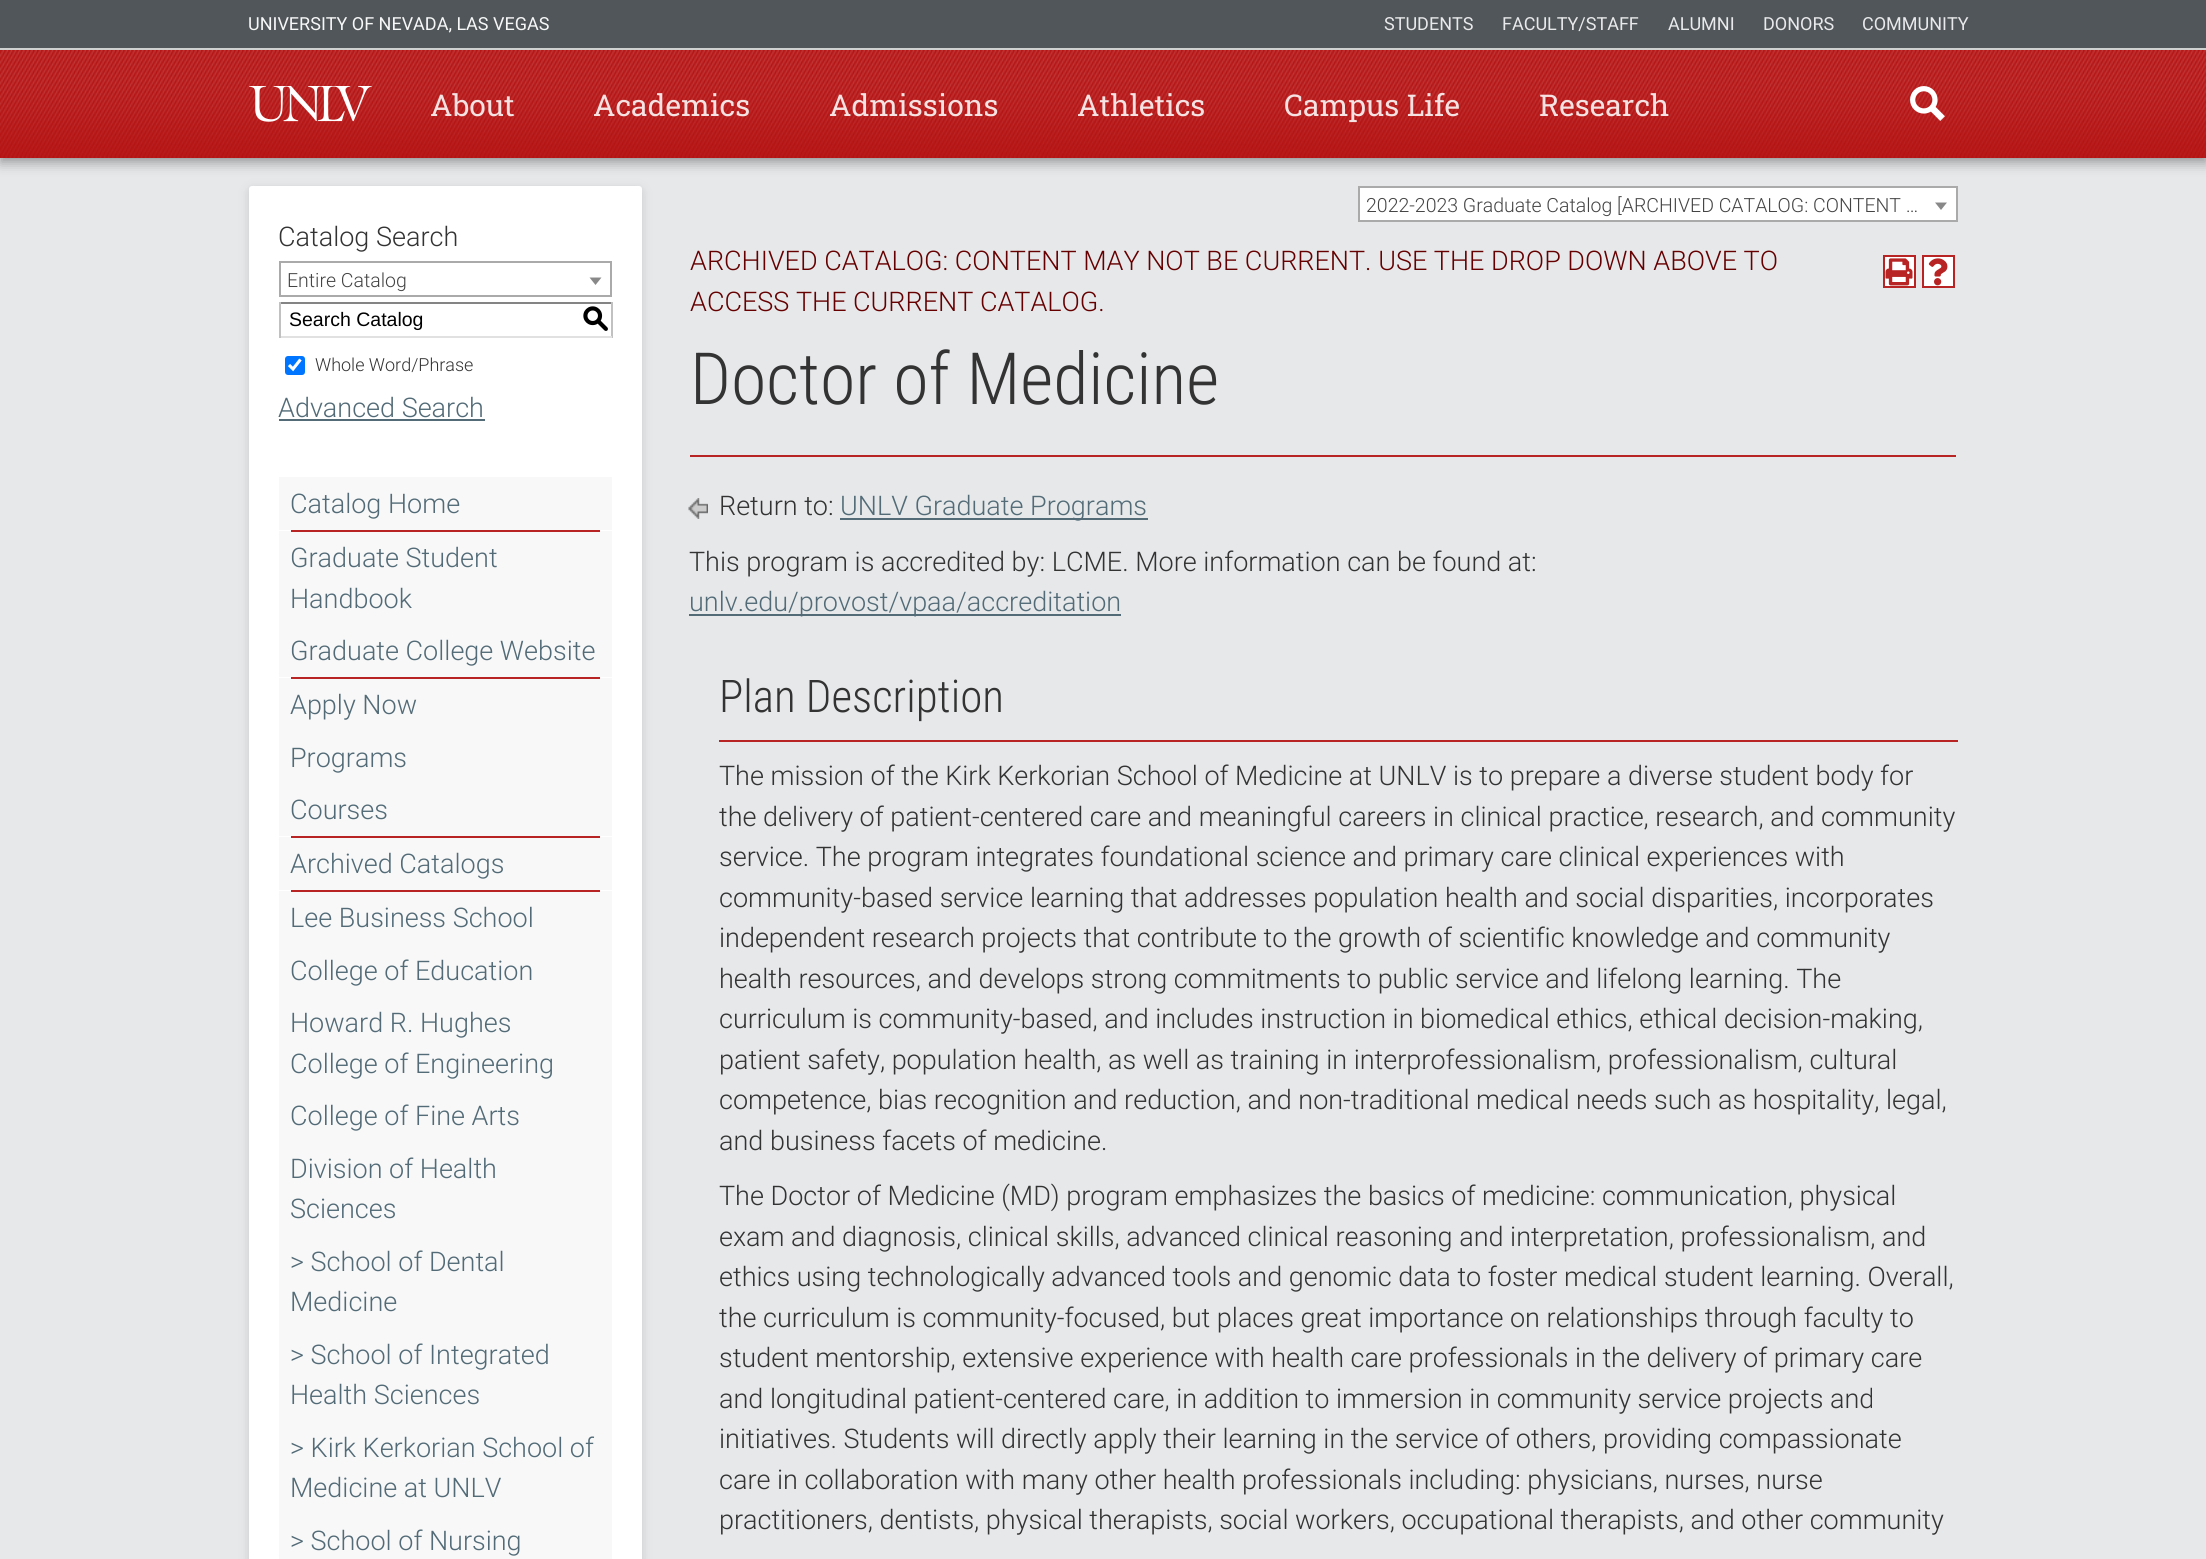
import math
import cairo

surface = cairo.ImageSurface(cairo.FORMAT_RGB24, 2206, 1559)
cr = cairo.Context(surface)
options = cairo.FontOptions()
options.set_hint_metrics(cairo.HINT_METRICS_OFF)
options.set_hint_style(cairo.HINT_STYLE_NONE)
cr.set_font_options(options)
cr.set_miter_limit(4)


def rgb(code):
    cr.set_source_rgb(*(v / 255 for v in bytes.fromhex(code[-6:])))


def rrect(x, y, w, h, r):
    cr.new_sub_path()
    for i, (u, v) in enumerate([(x + w - r, y + h - r), (x + r, y + h - r), (x + r, y + r), (x + w - r, y + r)]):
        cr.arc(u, v, r, i * math.pi / 2, (i + 1) * math.pi / 2)
    cr.close_path()


def soft_shadow(x, y, w, h, r, blur, alpha):
    cr.push_group_with_content(cairo.CONTENT_ALPHA)
    cr.set_operator(cairo.OPERATOR_SOURCE)
    for i in range(15, -16, -2):
        e = blur * i / 6
        if min(w, h) + 2 * e > 0:
            cr.set_source_rgba(0, 0, 0, alpha * math.erfc((i - 1) / 8.5) / 2)
            rrect(x - e, y - e, w + 2 * e, h + 2 * e, max(0, min(r + e + blur * .6, min(w, h) / 2 + e)))
            cr.fill()
    cr.mask(cr.pop_group())


def image(path, x, y, w, h):
    cr.save()
    cr.set_source_surface(cairo.ImageSurface.create_from_png(path), x, y)
    cr.rectangle(x, y, w, h)
    cr.fill()
    cr.restore()


rgb("#e6e8ea")
cr.paint()
cr.save()
cr.set_fill_rule(cairo.FILL_RULE_EVEN_ODD)
cr.new_path()
cr.move_to(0, 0)
cr.line_to(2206, 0)
cr.line_to(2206, 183)
cr.line_to(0, 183)
cr.close_path()
cr.move_to(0, 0)
cr.line_to(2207, 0)
cr.line_to(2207, 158)
cr.line_to(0, 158)
cr.close_path()
cr.clip()
rgb("#000000")
soft_shadow(0, 6, 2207, 158, 0, 6, 0.28)
cr.restore()
cr.save()
cr.set_fill_rule(cairo.FILL_RULE_EVEN_ODD)
cr.new_path()
cr.move_to(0, 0)
cr.line_to(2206, 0)
cr.line_to(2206, 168)
cr.line_to(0, 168)
cr.close_path()
cr.move_to(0, 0)
cr.line_to(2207, 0)
cr.line_to(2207, 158)
cr.line_to(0, 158)
cr.close_path()
cr.clip()
rgb("#000000")
soft_shadow(0, 0, 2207, 158, 0, 3, 0.14)
cr.restore()
rgb("#51565a")
cr.rectangle(0, 0, 2206, 48)
cr.fill()
rgb("#cfd0d0")
cr.rectangle(0, 48, 2206, 2)
cr.fill()
cr.set_source_rgba(0.694, 0.008, 0.008, 0.92)
cr.rectangle(0, 50, 2206, 108)
cr.fill()
image("img/1.png", 0, 50, 2206, 108)
image("img/2.png", 249, 86, 123, 36)
image("img/3.png", 1910, 86, 35, 35)
rgb("#ffffff")
cr.rectangle(1359, 187, 598, 34)
cr.fill_preserve()
rgb("#aaaaaa")
cr.stroke()
rgb("#888888")
cr.new_path()
cr.move_to(1935, 202.5)
cr.line_to(1947, 202.5)
cr.line_to(1941, 210)
cr.close_path()
cr.fill()
rgb("#000000")
soft_shadow(249, 189, 393, 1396, 3, 7.5, 0.06)
soft_shadow(249, 189, 393, 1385, 3, 4, 0.08)
rgb("#ffffff")
rrect(249, 186, 393, 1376, 3)
cr.fill()
cr.rectangle(280, 262, 331, 34)
rgb("#aaaaaa")
cr.stroke()
rgb("#888888")
cr.new_path()
cr.move_to(589.5, 277.5)
cr.line_to(601.5, 277.5)
cr.line_to(595.5, 285)
cr.close_path()
cr.fill()
for x, y, w, h, color in [
    (279, 302, 333, 2, "#848484"),
    (611, 302, 2, 36, "#c1c1c1"),
    (279, 336, 333, 2, "#e1e1e1"),
    (279, 302, 2, 36, "#c1c1c1"),
]:
    rgb(color)
    cr.rectangle(x, y, w, h)
    cr.fill()
rgb("#0075ff")
rrect(285, 356, 20, 19, 3)
cr.fill()
cr.new_path()
cr.move_to(289, 365)
cr.line_to(293, 369)
cr.line_to(300.5, 359.5)
rgb("#ffffff")
cr.set_line_width(3.1)
cr.stroke()
for x, y, w, h, color in [
    (279, 419, 206, 2, "#526b77"),
    (279, 477, 333, 53, "#f8f8f8"),
    (279, 531, 333, 146, "#f8f8f8"),
    (291, 530, 309, 2, "#b82323"),
    (279, 678, 333, 158, "#f8f8f8"),
    (291, 677, 309, 2, "#b82323"),
    (279, 837, 333, 53, "#f8f8f8"),
    (291, 836, 309, 2, "#b82323"),
    (279, 891, 333, 668, "#f8f8f8"),
    (291, 890, 309, 2, "#b82323"),
]:
    rgb(color)
    cr.rectangle(x, y, w, h)
    cr.fill()
rgb("#ffffff")
cr.rectangle(1884, 256, 31, 31)
cr.fill_preserve()
rgb("#b82323")
cr.set_line_width(2)
cr.stroke()
image("img/4.png", 1885, 258, 28, 28)
rgb("#ffffff")
cr.rectangle(1923, 256, 31, 31)
cr.fill_preserve()
rgb("#b82323")
cr.stroke()
image("img/5.png", 1928, 258, 20, 28)
cr.rectangle(690, 455, 1266, 2)
cr.fill()
image("img/6.png", 688, 498, 20, 21)
for x, y, w, h, color in [
    (840, 518, 308, 2, "#526b77"),
    (689, 614, 432, 2, "#526b77"),
    (719, 740, 1239, 2, "#b82323"),
]:
    rgb(color)
    cr.rectangle(x, y, w, h)
    cr.fill()
cr.select_font_face("Roboto")
cr.set_font_size(18)
rgb("#f6f7f7")
cr.move_to(248, 30)
cr.show_text("UNIVERSITY OF NEVADA, LAS VEGAS")
rgb("#e8e9ea")
for x, y, s in [
    (1384, 30, "STUDENTS"),
    (1502, 30, "FACULTY/STAFF"),
    (1668, 30, "ALUMNI"),
    (1763, 30, "DONORS"),
    (1862, 30, "COMMUNITY"),
]:
    cr.move_to(x, y)
    cr.show_text(s)
cr.select_font_face("Roboto Slab")
cr.set_font_size(30)
rgb("#f6e2e2")
for x, y, s in [
    (430, 116, "About"),
    (593, 116, "Academics"),
    (829, 116, "Admissions"),
    (1077, 116, "Athletics"),
    (1284, 116, "Campus Life"),
    (1539, 116, "Research"),
]:
    cr.move_to(x, y)
    cr.show_text(s)
cr.select_font_face("Roboto Light")
cr.set_font_size(19.5)
rgb("#444444")
cr.move_to(1366, 212)
cr.show_text("2022-2023 Graduate Catalog [ARCHIVED CATALOG: CONTENT …")
cr.set_font_size(27)
rgb("#333333")
cr.move_to(278, 246)
cr.show_text("Catalog Search")
cr.set_font_size(19.5)
rgb("#444444")
cr.move_to(287, 287)
cr.show_text("Entire Catalog")
cr.select_font_face("Liberation Sans")
rgb("#000000")
cr.move_to(289, 326)
cr.show_text("Search Catalog")
cr.select_font_face("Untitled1 Medium")
cr.set_font_size(27)
cr.move_to(582, 327)
cr.show_text("S")
cr.select_font_face("Roboto Light")
cr.set_font_size(18)
rgb("#333333")
cr.move_to(315, 371)
cr.show_text("Whole Word/Phrase")
cr.set_font_size(27)
rgb("#526b77")
for x, y, s in [
    (278, 417, "Advanced Search"),
    (290, 513, "Catalog Home"),
    (290, 567, "Graduate Student"),
    (290, 608, "Handbook"),
    (290, 660, "Graduate College Website"),
    (290, 714, "Apply Now"),
    (290, 767, "Programs"),
    (290, 819, "Courses"),
    (290, 873, "Archived Catalogs"),
    (290, 927, "Lee Business School"),
    (290, 980, "College of Education"),
    (290, 1032, "Howard R. Hughes"),
    (290, 1073, "College of Engineering"),
    (290, 1125, "College of Fine Arts"),
    (290, 1178, "Division of Health"),
    (290, 1218, "Sciences"),
    (290, 1271, "> School of Dental"),
    (290, 1311, "Medicine"),
    (290, 1364, "> School of Integrated"),
    (290, 1404, "Health Sciences"),
    (290, 1457, "> Kirk Kerkorian School of"),
    (290, 1497, "Medicine at UNLV"),
    (290, 1550, "> School of Nursing"),
]:
    cr.move_to(x, y)
    cr.show_text(s)
rgb("#660000")
cr.move_to(690, 270)
cr.show_text("ARCHIVED CATALOG: CONTENT MAY NOT BE CURRENT. USE THE DROP DOWN ABOVE TO")
cr.move_to(690, 311)
cr.show_text("ACCESS THE CURRENT CATALOG.")
cr.select_font_face("Roboto Condensed Light")
cr.set_font_size(72)
rgb("#333333")
cr.move_to(690, 404)
cr.show_text("Doctor of Medicine")
cr.select_font_face("Roboto Light")
cr.set_font_size(27)
cr.move_to(719, 515)
cr.show_text("Return to:")
rgb("#526b77")
cr.move_to(840, 515)
cr.show_text("UNLV Graduate Programs")
rgb("#333333")
cr.move_to(689, 571)
cr.show_text("This program is accredited by: LCME. More information can be found at:")
rgb("#526b77")
cr.move_to(689, 611)
cr.show_text("unlv.edu/provost/vpaa/accreditation")
cr.select_font_face("Roboto Condensed Light")
cr.set_font_size(45)
rgb("#333333")
cr.move_to(719, 712)
cr.show_text("Plan Description")
cr.select_font_face("Roboto Light")
cr.set_font_size(27)
for x, y, s in [
    (719, 785, "The mission of the Kirk Kerkorian School of Medicine at UNLV is to prepare a diverse student body for"),
    (719, 826, "the delivery of patient-centered care and meaningful careers in clinical practice, research, and community"),
    (719, 866, "service. The program integrates foundational science and primary care clinical experiences with"),
    (719, 907, "community-based service learning that addresses population health and social disparities, incorporates"),
    (719, 947, "independent research projects that contribute to the growth of scientific knowledge and community"),
    (719, 988, "health resources, and develops strong commitments to public service and lifelong learning. The"),
    (719, 1028, "curriculum is community-based, and includes instruction in biomedical ethics, ethical decision-making,"),
    (719, 1069, "patient safety, population health, as well as training in interprofessionalism, professionalism, cultural"),
    (719, 1109, "competence, bias recognition and reduction, and non-traditional medical needs such as hospitality, legal,"),
    (719, 1150, "and business facets of medicine."),
    (719, 1205, "The Doctor of Medicine (MD) program emphasizes the basics of medicine: communication, physical"),
    (719, 1246, "exam and diagnosis, clinical skills, advanced clinical reasoning and interpretation, professionalism, and"),
    (719, 1286, "ethics using technologically advanced tools and genomic data to foster medical student learning. Overall,"),
    (719, 1327, "the curriculum is community-focused, but places great importance on relationships through faculty to"),
    (719, 1367, "student mentorship, extensive experience with health care professionals in the delivery of primary care"),
    (719, 1408, "and longitudinal patient-centered care, in addition to immersion in community service projects and"),
    (719, 1448, "initiatives. Students will directly apply their learning in the service of others, providing compassionate"),
    (719, 1489, "care in collaboration with many other health professionals including: physicians, nurses, nurse"),
    (719, 1529, "practitioners, dentists, physical therapists, social workers, occupational therapists, and other community"),
]:
    cr.move_to(x, y)
    cr.show_text(s)
surface.write_to_png("page.png")
